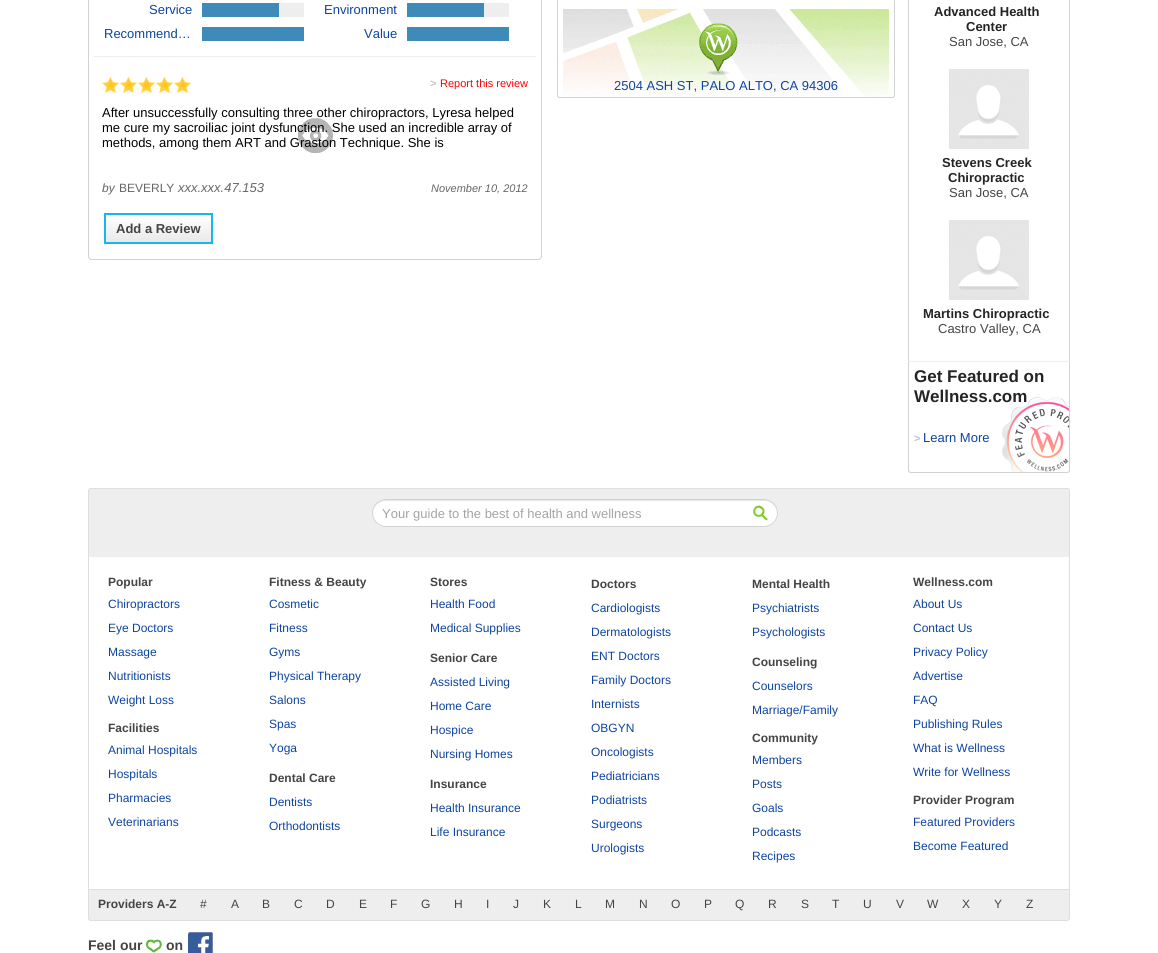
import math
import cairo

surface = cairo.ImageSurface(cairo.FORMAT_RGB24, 1158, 953)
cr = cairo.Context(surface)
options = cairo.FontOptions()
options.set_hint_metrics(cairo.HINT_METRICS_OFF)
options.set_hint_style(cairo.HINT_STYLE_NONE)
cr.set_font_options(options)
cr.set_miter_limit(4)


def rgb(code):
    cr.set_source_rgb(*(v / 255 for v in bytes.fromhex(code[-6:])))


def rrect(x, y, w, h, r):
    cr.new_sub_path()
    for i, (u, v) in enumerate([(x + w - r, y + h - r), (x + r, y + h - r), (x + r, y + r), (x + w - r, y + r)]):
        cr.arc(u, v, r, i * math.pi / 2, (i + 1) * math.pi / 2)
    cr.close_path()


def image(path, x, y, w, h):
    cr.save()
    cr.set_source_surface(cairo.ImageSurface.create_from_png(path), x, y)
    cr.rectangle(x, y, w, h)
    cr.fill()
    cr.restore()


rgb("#ffffff")
cr.paint()
rgb("#d2d2d2")
cr.new_path()
cr.move_to(542, 257)
cr.line_to(542, -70)
cr.line_to(542, -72)
cr.line_to(541, -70)
cr.line_to(541, 257)
cr.line_to(540, 258)
cr.line_to(541, 259)
cr.close_path()
cr.fill()
cr.new_path()
cr.move_to(91, 260)
cr.line_to(539, 260)
cr.line_to(541, 259)
cr.line_to(540, 258)
cr.line_to(539, 259)
cr.line_to(91, 259)
cr.line_to(90, 258)
cr.line_to(89, 259)
cr.close_path()
cr.fill()
cr.new_path()
cr.move_to(88, -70)
cr.line_to(88, 257)
cr.line_to(89, 259)
cr.line_to(90, 258)
cr.line_to(89, 257)
cr.line_to(89, -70)
cr.line_to(88, -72)
cr.close_path()
cr.fill()
for x, y, w, h, color in [
    (279, 3, 25, 14, "#eeeeee"),
    (202, 3, 77, 14, "#3e8ab9"),
    (484, 3, 25, 14, "#eeeeee"),
    (407, 3, 77, 14, "#3e8ab9"),
    (202, 27, 102, 14, "#3e8ab9"),
    (407, 27, 102, 14, "#3e8ab9"),
    (94, 56, 442, 1, "#eeeeee"),
]:
    rgb(color)
    cr.rectangle(x, y, w, h)
    cr.fill()
image("img/1.png", 102, 76, 9, 17)
image("img/2.png", 111, 77, 9, 16)
image("img/1.png", 120, 76, 9, 17)
image("img/2.png", 129, 77, 9, 16)
image("img/1.png", 138, 76, 9, 17)
image("img/2.png", 147, 77, 9, 16)
image("img/1.png", 156, 76, 9, 17)
image("img/2.png", 165, 77, 9, 16)
image("img/1.png", 174, 76, 9, 17)
image("img/2.png", 183, 77, 9, 16)
image("img/3.png", 298, 118, 35, 35)
gradient = cairo.LinearGradient(159, 215, 159, 242)
gradient.add_color_stop_rgba(0, 1, 1, 1, 1)
gradient.add_color_stop_rgba(1, 0.914, 0.914, 0.914, 1)
cr.set_source(gradient)
cr.rectangle(106, 218, 105, 24)
cr.fill()
cr.rectangle(105, 214, 107, 29)
rgb("#17b7ec")
cr.stroke()
rgb("#d2d2d2")
cr.set_fill_rule(cairo.FILL_RULE_EVEN_ODD)
cr.new_path()
cr.move_to(560, -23)
cr.line_to(892, -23)
cr.curve_to(894, -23, 895, -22, 895, -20)
cr.line_to(895, 95)
cr.curve_to(895, 97, 894, 98, 892, 98)
cr.line_to(560, 98)
cr.curve_to(558, 98, 557, 97, 557, 95)
cr.line_to(557, -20)
cr.curve_to(557, -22, 558, -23, 560, -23)
cr.close_path()
cr.move_to(560, -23)
cr.line_to(892, -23)
cr.curve_to(893, -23, 894, -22, 894, -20)
cr.line_to(894, 95)
cr.curve_to(894, 96, 893, 97, 892, 97)
cr.line_to(560, 97)
cr.curve_to(559, 97, 558, 96, 558, 95)
cr.line_to(558, -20)
cr.curve_to(558, -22, 559, -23, 560, -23)
cr.close_path()
cr.fill()
image("img/4.png", 558, 8, 334, 89)
rgb("#ffffff")
cr.set_fill_rule(cairo.FILL_RULE_WINDING)
cr.new_path()
cr.move_to(889, 8)
cr.line_to(889, 97)
cr.line_to(891, 97)
cr.curve_to(893, 97, 894, 96, 894, 94)
cr.line_to(894, 8)
cr.close_path()
cr.fill()
cr.new_path()
cr.move_to(558, 8)
cr.line_to(558, 94)
cr.curve_to(558, 96, 559, 97, 561, 97)
cr.line_to(563, 97)
cr.line_to(563, 8)
cr.close_path()
cr.fill()
rgb("#d2d2d2")
cr.new_path()
cr.move_to(1069, 361)
cr.line_to(1070, 361)
cr.line_to(1070, -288)
cr.line_to(1070, -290)
cr.line_to(1069, -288)
cr.close_path()
cr.fill()
cr.new_path()
cr.move_to(908, 361)
cr.line_to(909, 361)
cr.line_to(909, -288)
cr.line_to(908, -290)
cr.line_to(908, -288)
cr.close_path()
cr.fill()
image("img/5.png", 949, 69, 80, 80)
image("img/5.png", 949, 220, 80, 80)
rgb("#eeeeee")
cr.rectangle(908, 361, 162, 1)
cr.fill()
image("img/6.png", 1002, 397, 67, 75)
rgb("#d2d2d2")
cr.set_fill_rule(cairo.FILL_RULE_EVEN_ODD)
cr.new_path()
cr.move_to(908, 362)
cr.line_to(1070, 362)
cr.line_to(1070, 470)
cr.curve_to(1070, 472, 1069, 473, 1067, 473)
cr.line_to(911, 473)
cr.curve_to(909, 473, 908, 472, 908, 470)
cr.close_path()
cr.move_to(909, 362)
cr.line_to(1069, 362)
cr.line_to(1069, 470)
cr.curve_to(1069, 471, 1068, 472, 1067, 472)
cr.line_to(911, 472)
cr.curve_to(910, 472, 909, 471, 909, 470)
cr.close_path()
cr.fill()
rgb("#eeeeee")
rrect(88.5, 488.5, 981, 432, 2.5)
cr.fill_preserve()
rgb("#dedede")
cr.set_line_width(1)
cr.stroke()
rgb("#ffffff")
rrect(372, 499, 406, 28, 14)
cr.fill()
rgb("#e6e6e6")
cr.set_fill_rule(cairo.FILL_RULE_WINDING)
cr.new_path()
cr.move_to(386, 501)
cr.line_to(764, 501)
cr.curve_to(771, 501, 777, 507, 777, 514)
cr.curve_to(777, 509, 775, 505, 771, 502)
cr.curve_to(769, 501, 767, 500, 764, 500)
cr.line_to(386, 500)
cr.curve_to(379, 500, 373, 506, 373, 514)
cr.curve_to(373, 507, 379, 501, 386, 501)
cr.close_path()
cr.fill()
rrect(372.5, 499.5, 405, 27, 13.5)
rgb("#d2d2d2")
cr.stroke()
image("img/7.png", 753, 505, 15, 16)
rgb("#ffffff")
cr.rectangle(89, 557, 980, 332)
cr.fill()
rgb("#dedede")
cr.rectangle(89, 889, 980, 1)
cr.fill()
image("img/8.png", 146, 939, 16, 14)
image("img/9.png", 188, 932, 25, 21)
cr.select_font_face("Liberation Sans")
cr.set_font_size(13)
rgb("#0d44a0")
for x, y, s in [
    (149, 14, "Service"),
    (324, 14, "Environment"),
    (104, 38, "Recommend…"),
    (364, 38, "Value"),
]:
    cr.move_to(x, y)
    cr.show_text(s)
cr.select_font_face("Liberation Sans", cairo.FONT_SLANT_NORMAL, cairo.FONT_WEIGHT_BOLD)
cr.set_font_size(11)
rgb("#c3c3c3")
cr.move_to(430, 87)
cr.show_text(">")
cr.select_font_face("Liberation Sans")
rgb("#ff0000")
cr.move_to(440, 87)
cr.show_text("Report this review")
cr.set_font_size(13)
rgb("#000000")
for x, y, s in [
    (102, 117, "After unsuccessfully consulting three other chiropractors, Lyresa helped"),
    (102, 132, "me cure my sacroiliac joint dysfunction. She used an incredible array of"),
    (102, 147, "methods, among them ART and Graston Technique. She is"),
]:
    cr.move_to(x, y)
    cr.show_text(s)
cr.select_font_face("Liberation Sans", cairo.FONT_SLANT_ITALIC)
cr.set_font_size(12)
rgb("#666666")
cr.move_to(102, 192)
cr.show_text("by")
cr.select_font_face("Liberation Sans")
cr.move_to(119, 192)
cr.show_text("BEVERLY")
cr.select_font_face("Liberation Sans", cairo.FONT_SLANT_ITALIC)
cr.set_font_size(13)
cr.move_to(178, 192)
cr.show_text("xxx.xxx.47.153")
cr.set_font_size(11)
cr.move_to(431, 192)
cr.show_text("November 10, 2012")
cr.select_font_face("Liberation Sans", cairo.FONT_SLANT_NORMAL, cairo.FONT_WEIGHT_BOLD)
cr.set_font_size(13)
rgb("#444444")
cr.move_to(116, 233)
cr.show_text("Add a Review")
cr.select_font_face("Liberation Sans")
rgb("#0d44a0")
cr.move_to(614, 90)
cr.show_text("2504 ASH ST, PALO ALTO, CA 94306")
cr.select_font_face("Liberation Sans", cairo.FONT_SLANT_NORMAL, cairo.FONT_WEIGHT_BOLD)
rgb("#242424")
cr.move_to(934, 16)
cr.show_text("Advanced Health")
cr.move_to(966, 31)
cr.show_text("Center")
cr.select_font_face("Liberation Sans")
rgb("#444444")
cr.move_to(949, 46)
cr.show_text("San Jose, CA")
cr.select_font_face("Liberation Sans", cairo.FONT_SLANT_NORMAL, cairo.FONT_WEIGHT_BOLD)
rgb("#242424")
cr.move_to(942, 167)
cr.show_text("Stevens Creek")
cr.move_to(948, 182)
cr.show_text("Chiropractic")
cr.select_font_face("Liberation Sans")
rgb("#444444")
cr.move_to(949, 197)
cr.show_text("San Jose, CA")
cr.select_font_face("Liberation Sans", cairo.FONT_SLANT_NORMAL, cairo.FONT_WEIGHT_BOLD)
rgb("#242424")
cr.move_to(923, 318)
cr.show_text("Martins Chiropractic")
cr.select_font_face("Liberation Sans")
rgb("#444444")
cr.move_to(938, 333)
cr.show_text("Castro Valley, CA")
cr.select_font_face("Liberation Sans", cairo.FONT_SLANT_NORMAL, cairo.FONT_WEIGHT_BOLD)
cr.set_font_size(17)
rgb("#242424")
cr.move_to(914, 382)
cr.show_text("Get Featured on")
cr.move_to(914, 402)
cr.show_text("Wellness.com")
cr.set_font_size(11)
rgb("#c3c3c3")
cr.move_to(914, 442)
cr.show_text(">")
cr.select_font_face("Liberation Sans")
cr.set_font_size(13)
rgb("#0d44a0")
cr.move_to(923, 442)
cr.show_text("Learn More")
rgb("#a4a4a4")
cr.move_to(382, 518)
cr.show_text("Your guide to the best of health and wellness")
cr.select_font_face("Liberation Sans", cairo.FONT_SLANT_NORMAL, cairo.FONT_WEIGHT_BOLD)
cr.set_font_size(12)
rgb("#444444")
cr.move_to(108, 586)
cr.show_text("Popular")
cr.select_font_face("Liberation Sans")
rgb("#0d44a0")
for x, y, s in [
    (108, 608, "Chiropractors"),
    (108, 632, "Eye Doctors"),
    (108, 656, "Massage"),
    (108, 680, "Nutritionists"),
    (108, 704, "Weight Loss"),
]:
    cr.move_to(x, y)
    cr.show_text(s)
cr.select_font_face("Liberation Sans", cairo.FONT_SLANT_NORMAL, cairo.FONT_WEIGHT_BOLD)
rgb("#444444")
cr.move_to(108, 732)
cr.show_text("Facilities")
cr.select_font_face("Liberation Sans")
rgb("#0d44a0")
for x, y, s in [
    (108, 754, "Animal Hospitals"),
    (108, 778, "Hospitals"),
    (108, 802, "Pharmacies"),
    (108, 826, "Veterinarians"),
]:
    cr.move_to(x, y)
    cr.show_text(s)
cr.select_font_face("Liberation Sans", cairo.FONT_SLANT_NORMAL, cairo.FONT_WEIGHT_BOLD)
rgb("#444444")
cr.move_to(269, 586)
cr.show_text("Fitness & Beauty")
cr.select_font_face("Liberation Sans")
rgb("#0d44a0")
for x, y, s in [
    (269, 608, "Cosmetic"),
    (269, 632, "Fitness"),
    (269, 656, "Gyms"),
    (269, 680, "Physical Therapy"),
    (269, 704, "Salons"),
    (269, 728, "Spas"),
    (269, 752, "Yoga"),
]:
    cr.move_to(x, y)
    cr.show_text(s)
cr.select_font_face("Liberation Sans", cairo.FONT_SLANT_NORMAL, cairo.FONT_WEIGHT_BOLD)
rgb("#444444")
cr.move_to(269, 782)
cr.show_text("Dental Care")
cr.select_font_face("Liberation Sans")
rgb("#0d44a0")
cr.move_to(269, 806)
cr.show_text("Dentists")
cr.move_to(269, 830)
cr.show_text("Orthodontists")
cr.select_font_face("Liberation Sans", cairo.FONT_SLANT_NORMAL, cairo.FONT_WEIGHT_BOLD)
rgb("#444444")
cr.move_to(430, 586)
cr.show_text("Stores")
cr.select_font_face("Liberation Sans")
rgb("#0d44a0")
cr.move_to(430, 608)
cr.show_text("Health Food")
cr.move_to(430, 632)
cr.show_text("Medical Supplies")
cr.select_font_face("Liberation Sans", cairo.FONT_SLANT_NORMAL, cairo.FONT_WEIGHT_BOLD)
rgb("#444444")
cr.move_to(430, 662)
cr.show_text("Senior Care")
cr.select_font_face("Liberation Sans")
rgb("#0d44a0")
for x, y, s in [
    (430, 686, "Assisted Living"),
    (430, 710, "Home Care"),
    (430, 734, "Hospice"),
    (430, 758, "Nursing Homes"),
]:
    cr.move_to(x, y)
    cr.show_text(s)
cr.select_font_face("Liberation Sans", cairo.FONT_SLANT_NORMAL, cairo.FONT_WEIGHT_BOLD)
rgb("#444444")
cr.move_to(430, 788)
cr.show_text("Insurance")
cr.select_font_face("Liberation Sans")
rgb("#0d44a0")
cr.move_to(430, 812)
cr.show_text("Health Insurance")
cr.move_to(430, 836)
cr.show_text("Life Insurance")
cr.select_font_face("Liberation Sans", cairo.FONT_SLANT_NORMAL, cairo.FONT_WEIGHT_BOLD)
rgb("#444444")
cr.move_to(591, 588)
cr.show_text("Doctors")
cr.select_font_face("Liberation Sans")
rgb("#0d44a0")
for x, y, s in [
    (591, 612, "Cardiologists"),
    (591, 636, "Dermatologists"),
    (591, 660, "ENT Doctors"),
    (591, 684, "Family Doctors"),
    (591, 708, "Internists"),
    (591, 732, "OBGYN"),
    (591, 756, "Oncologists"),
    (591, 780, "Pediatricians"),
    (591, 804, "Podiatrists"),
    (591, 828, "Surgeons"),
    (591, 852, "Urologists"),
]:
    cr.move_to(x, y)
    cr.show_text(s)
cr.select_font_face("Liberation Sans", cairo.FONT_SLANT_NORMAL, cairo.FONT_WEIGHT_BOLD)
rgb("#444444")
cr.move_to(752, 588)
cr.show_text("Mental Health")
cr.select_font_face("Liberation Sans")
rgb("#0d44a0")
cr.move_to(752, 612)
cr.show_text("Psychiatrists")
cr.move_to(752, 636)
cr.show_text("Psychologists")
cr.select_font_face("Liberation Sans", cairo.FONT_SLANT_NORMAL, cairo.FONT_WEIGHT_BOLD)
rgb("#444444")
cr.move_to(752, 666)
cr.show_text("Counseling")
cr.select_font_face("Liberation Sans")
rgb("#0d44a0")
cr.move_to(752, 690)
cr.show_text("Counselors")
cr.move_to(752, 714)
cr.show_text("Marriage/Family")
cr.select_font_face("Liberation Sans", cairo.FONT_SLANT_NORMAL, cairo.FONT_WEIGHT_BOLD)
rgb("#444444")
cr.move_to(752, 742)
cr.show_text("Community")
cr.select_font_face("Liberation Sans")
rgb("#0d44a0")
for x, y, s in [
    (752, 764, "Members"),
    (752, 788, "Posts"),
    (752, 812, "Goals"),
    (752, 836, "Podcasts"),
    (752, 860, "Recipes"),
]:
    cr.move_to(x, y)
    cr.show_text(s)
cr.select_font_face("Liberation Sans", cairo.FONT_SLANT_NORMAL, cairo.FONT_WEIGHT_BOLD)
rgb("#444444")
cr.move_to(913, 586)
cr.show_text("Wellness.com")
cr.select_font_face("Liberation Sans")
rgb("#0d44a0")
for x, y, s in [
    (913, 608, "About Us"),
    (913, 632, "Contact Us"),
    (913, 656, "Privacy Policy"),
    (913, 680, "Advertise"),
    (913, 704, "FAQ"),
    (913, 728, "Publishing Rules"),
    (913, 752, "What is Wellness"),
    (913, 776, "Write for Wellness"),
]:
    cr.move_to(x, y)
    cr.show_text(s)
cr.select_font_face("Liberation Sans", cairo.FONT_SLANT_NORMAL, cairo.FONT_WEIGHT_BOLD)
rgb("#444444")
cr.move_to(913, 804)
cr.show_text("Provider Program")
cr.select_font_face("Liberation Sans")
rgb("#0d44a0")
cr.move_to(913, 826)
cr.show_text("Featured Providers")
cr.move_to(913, 850)
cr.show_text("Become Featured")
cr.select_font_face("Liberation Sans", cairo.FONT_SLANT_NORMAL, cairo.FONT_WEIGHT_BOLD)
rgb("#444444")
cr.move_to(98, 908)
cr.show_text("Providers A-Z")
cr.select_font_face("Liberation Sans")
for x, y, s in [
    (200, 908, "#"),
    (231, 908, "A"),
    (262, 908, "B"),
    (294, 908, "C"),
    (326, 908, "D"),
    (359, 908, "E"),
    (390, 908, "F"),
    (421, 908, "G"),
    (454, 908, "H"),
    (486, 908, "I"),
    (513, 908, "J"),
    (543, 908, "K"),
    (575, 908, "L"),
    (605, 908, "M"),
    (639, 908, "N"),
    (671, 908, "O"),
    (704, 908, "P"),
    (735, 908, "Q"),
    (768, 908, "R"),
    (801, 908, "S"),
    (832, 908, "T"),
    (863, 908, "U"),
    (896, 908, "V"),
    (927, 908, "W"),
    (962, 908, "X"),
    (994, 908, "Y"),
    (1026, 908, "Z"),
]:
    cr.move_to(x, y)
    cr.show_text(s)
cr.select_font_face("Liberation Sans", cairo.FONT_SLANT_NORMAL, cairo.FONT_WEIGHT_BOLD)
cr.set_font_size(14)
cr.move_to(88, 950)
cr.show_text("Feel our")
cr.move_to(166, 950)
cr.show_text("on")
surface.write_to_png("page.png")
